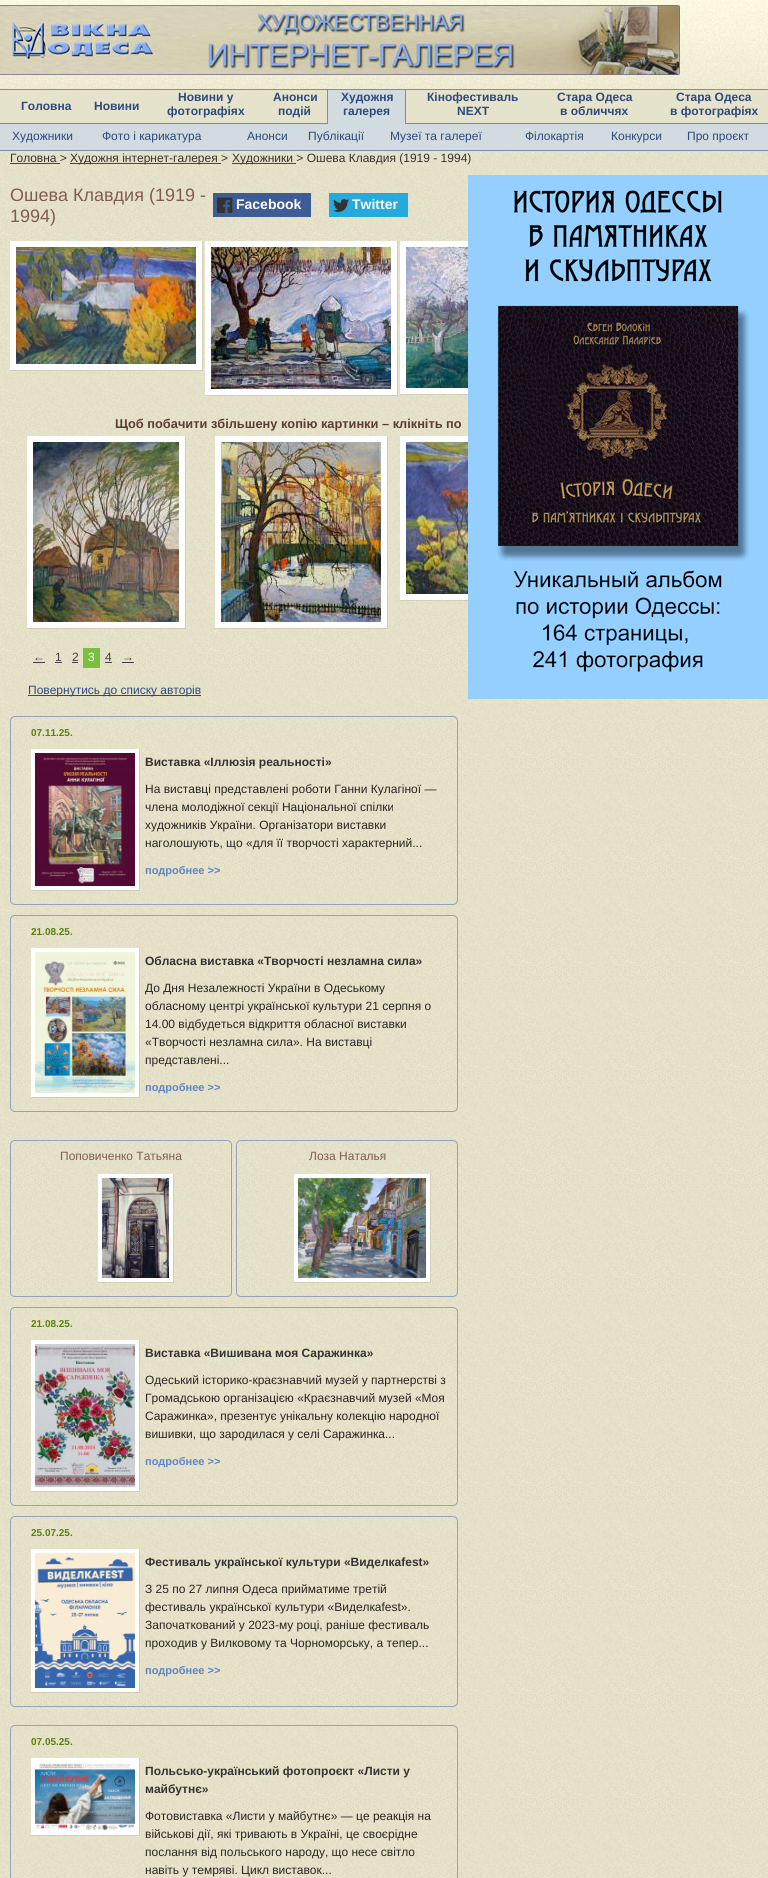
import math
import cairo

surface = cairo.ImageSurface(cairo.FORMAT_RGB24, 768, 1878)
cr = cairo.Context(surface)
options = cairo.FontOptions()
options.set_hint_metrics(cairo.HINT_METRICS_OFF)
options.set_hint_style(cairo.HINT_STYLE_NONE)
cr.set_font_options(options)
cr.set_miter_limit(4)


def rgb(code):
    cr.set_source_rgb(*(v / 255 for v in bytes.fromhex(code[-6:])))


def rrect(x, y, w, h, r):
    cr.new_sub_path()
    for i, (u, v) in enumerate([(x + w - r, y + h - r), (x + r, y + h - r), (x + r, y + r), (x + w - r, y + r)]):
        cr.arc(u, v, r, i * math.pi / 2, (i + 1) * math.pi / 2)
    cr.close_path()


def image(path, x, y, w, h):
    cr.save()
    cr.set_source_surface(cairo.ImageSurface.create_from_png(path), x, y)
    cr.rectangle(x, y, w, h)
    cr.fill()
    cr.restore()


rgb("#ffffff")
cr.paint()
image("img/1.png", 0, 160, 768, 1718)
image("img/2.png", 0, 0, 768, 160)
image("img/3.png", 0, 5, 680, 70)
for x, y, w, h, color in [
    (0, 90, 768, 33, "#e5e3cc"),
    (0, 89, 768, 1, "#768bb7"),
    (328, 90, 77, 33, "#d1dbe0"),
    (405, 90, 1, 33, "#768bb7"),
    (327, 90, 1, 33, "#768bb7"),
    (0, 123, 768, 1, "#768bb7"),
    (328, 123, 77, 1, "#d1dbe0"),
    (0, 124, 768, 26, "#d1dbe0"),
    (0, 150, 768, 1, "#768bb7"),
    (10, 163, 50, 1, "#2e497a"),
    (70, 163, 151, 1, "#2e497a"),
    (232, 163, 64, 1, "#2e497a"),
    (213, 193, 98, 24, "#3d5b95"),
]:
    rgb(color)
    cr.rectangle(x, y, w, h)
    cr.fill()
image("img/4.png", 217, 197, 16, 16)
rgb("#24aadd")
cr.rectangle(329, 193, 79, 24)
cr.fill()
image("img/5.png", 333, 198, 16, 14)
rgb("#ffffff")
cr.rectangle(10, 241, 192, 129)
cr.fill()
rgb("#d2ceb7")
cr.rectangle(202, 241, 1, 130)
cr.fill()
image("img/6.png", 16, 247, 180, 117)
for x, y, w, h, color in [
    (10, 370, 193, 1, "#d1cdb6"),
    (205, 241, 192, 154, "#ffffff"),
    (397, 241, 1, 155, "#d2ceb7"),
]:
    rgb(color)
    cr.rectangle(x, y, w, h)
    cr.fill()
image("img/7.png", 211, 247, 180, 142)
rgb("#d1cdb6")
cr.rectangle(205, 395, 193, 1)
cr.fill()
rgb("#ffffff")
cr.rectangle(400, 241, 68, 153)
cr.fill()
image("img/8.png", 406, 247, 62, 141)
for x, y, w, h, color in [
    (400, 394, 68, 1, "#d1cdb6"),
    (27, 436, 158, 192, "#ffffff"),
    (185, 436, 1, 193, "#d2ceb7"),
]:
    rgb(color)
    cr.rectangle(x, y, w, h)
    cr.fill()
image("img/9.png", 33, 442, 146, 180)
for x, y, w, h, color in [
    (27, 628, 159, 1, "#d1cdb6"),
    (215, 436, 172, 192, "#ffffff"),
    (387, 436, 1, 193, "#d2ceb7"),
]:
    rgb(color)
    cr.rectangle(x, y, w, h)
    cr.fill()
image("img/10.png", 221, 442, 160, 180)
rgb("#d1cdb6")
cr.rectangle(215, 628, 173, 1)
cr.fill()
rgb("#ffffff")
cr.rectangle(400, 436, 68, 164)
cr.fill()
image("img/11.png", 406, 442, 62, 152)
for x, y, w, h, color in [
    (400, 600, 68, 1, "#d1cdb6"),
    (33, 662, 12, 1, "#404040"),
    (55, 662, 7, 1, "#404040"),
    (72, 662, 6, 1, "#404040"),
    (83, 648, 17, 20, "#79c040"),
    (105, 662, 7, 1, "#404040"),
    (122, 662, 12, 1, "#404040"),
    (28, 695, 173, 1, "#2e497a"),
]:
    rgb(color)
    cr.rectangle(x, y, w, h)
    cr.fill()
rrect(10.5, 716.5, 447, 188, 4.5)
rgb("#95a2bc")
cr.set_line_width(1)
cr.stroke()
rgb("#ffffff")
cr.rectangle(31, 749, 108, 141)
cr.fill()
rgb("#d2ceb7")
cr.rectangle(139, 749, 1, 142)
cr.fill()
image("img/12.png", 35, 753, 100, 133)
rgb("#d1cdb6")
cr.rectangle(31, 890, 109, 1)
cr.fill()
rrect(10.5, 915.5, 447, 196, 4.5)
rgb("#95a2bc")
cr.stroke()
rgb("#ffffff")
cr.rectangle(31, 948, 108, 149)
cr.fill()
rgb("#d2ceb7")
cr.rectangle(139, 948, 1, 150)
cr.fill()
image("img/13.png", 35, 952, 100, 141)
rgb("#d1cdb6")
cr.rectangle(31, 1097, 109, 1)
cr.fill()
rrect(10.5, 1140.5, 221, 156, 4.5)
rgb("#95a2bc")
cr.stroke()
rgb("#ffffff")
cr.rectangle(98, 1174, 75, 108)
cr.fill()
rgb("#d2ceb7")
cr.rectangle(173, 1174, 1, 109)
cr.fill()
image("img/14.png", 102, 1178, 67, 100)
rgb("#d1cdb6")
cr.rectangle(98, 1282, 76, 1)
cr.fill()
rrect(236.5, 1140.5, 221, 156, 4.5)
rgb("#95a2bc")
cr.stroke()
rgb("#ffffff")
cr.rectangle(294, 1174, 136, 108)
cr.fill()
rgb("#d2ceb7")
cr.rectangle(430, 1174, 1, 109)
cr.fill()
image("img/15.png", 298, 1178, 128, 100)
rgb("#d1cdb6")
cr.rectangle(294, 1282, 137, 1)
cr.fill()
rrect(10.5, 1307.5, 447, 198, 4.5)
rgb("#95a2bc")
cr.stroke()
rgb("#ffffff")
cr.rectangle(31, 1340, 108, 151)
cr.fill()
rgb("#d2ceb7")
cr.rectangle(139, 1340, 1, 152)
cr.fill()
image("img/16.png", 35, 1344, 100, 143)
rgb("#d1cdb6")
cr.rectangle(31, 1491, 109, 1)
cr.fill()
rrect(10.5, 1516.5, 447, 190, 4.5)
rgb("#95a2bc")
cr.stroke()
rgb("#ffffff")
cr.rectangle(31, 1549, 108, 143)
cr.fill()
rgb("#d2ceb7")
cr.rectangle(139, 1549, 1, 144)
cr.fill()
image("img/17.png", 35, 1553, 100, 135)
rgb("#d1cdb6")
cr.rectangle(31, 1692, 109, 1)
cr.fill()
rrect(10.5, 1725.5, 447, 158, 4.5)
rgb("#95a2bc")
cr.stroke()
rgb("#ffffff")
cr.rectangle(31, 1758, 108, 77)
cr.fill()
rgb("#d2ceb7")
cr.rectangle(139, 1758, 1, 78)
cr.fill()
image("img/18.png", 35, 1763, 100, 68)
rgb("#d1cdb6")
cr.rectangle(31, 1835, 109, 1)
cr.fill()
image("img/19.png", 468, 175, 300, 524)
cr.select_font_face("Liberation Sans", cairo.FONT_SLANT_NORMAL, cairo.FONT_WEIGHT_BOLD)
cr.set_font_size(12)
rgb("#2e497a")
for x, y, s in [
    (21, 110, "Головна"),
    (94, 110, "Новини"),
    (178, 101, "Новини у"),
    (167, 115, "фотографіях"),
    (273, 101, "Анонси"),
    (278, 115, "подій"),
    (341, 101, "Художня"),
    (343, 115, "галерея"),
    (427, 101, "Кінофестиваль"),
    (457, 115, "NEXT"),
    (557, 101, "Стара Одеса"),
    (560, 115, "в обличчях"),
    (676, 101, "Стара Одеса"),
    (670, 115, "в фотографіях"),
]:
    cr.move_to(x, y)
    cr.show_text(s)
cr.select_font_face("Liberation Sans")
for x, y, s in [
    (12, 140, "Художники"),
    (102, 140, "Фото і карикатура"),
    (247, 140, "Анонси"),
    (308, 140, "Публікації"),
    (390, 140, "Музеї та галереї"),
    (525, 140, "Філокартія"),
    (611, 140, "Конкурси"),
    (687, 140, "Про проєкт"),
]:
    cr.move_to(x, y)
    cr.show_text(s)
rgb("#333333")
for x, y, s in [
    (10, 162, "Головна >"),
    (70, 162, "Художня інтернет-галерея >"),
    (232, 162, "Художники > Ошева Клавдия (1919 - 1994)"),
]:
    cr.move_to(x, y)
    cr.show_text(s)
cr.set_font_size(18)
rgb("#805c51")
cr.move_to(10, 201)
cr.show_text("Ошева Клавдия (1919 -")
cr.move_to(10, 222)
cr.show_text("1994)")
cr.select_font_face("Liberation Sans", cairo.FONT_SLANT_NORMAL, cairo.FONT_WEIGHT_BOLD)
cr.set_font_size(14)
rgb("#ffffff")
cr.move_to(236, 209)
cr.show_text("Facebook")
cr.move_to(352, 209)
cr.show_text("Twitter")
cr.set_font_size(12.8)
rgb("#5b3c34")
cr.move_to(115, 428)
cr.show_text("Щоб побачити збільшену копію картинки – клікніть по")
cr.select_font_face("Liberation Sans")
cr.set_font_size(12)
rgb("#404040")
for x, y, s in [
    (33, 661, "←"),
    (55, 661, "1"),
    (72, 661, "2"),
]:
    cr.move_to(x, y)
    cr.show_text(s)
rgb("#ffffff")
cr.move_to(88, 661)
cr.show_text("3")
rgb("#404040")
cr.move_to(105, 661)
cr.show_text("4")
cr.move_to(122, 661)
cr.show_text("→")
rgb("#2e497a")
cr.move_to(28, 694)
cr.show_text("Повернутись до списку авторів")
cr.select_font_face("Liberation Sans", cairo.FONT_SLANT_NORMAL, cairo.FONT_WEIGHT_BOLD)
cr.set_font_size(10)
rgb("#59800f")
cr.move_to(31, 736)
cr.show_text("07.11.25.")
cr.set_font_size(12)
rgb("#333333")
cr.move_to(145, 766)
cr.show_text("Виставка «Іллюзія реальності»")
cr.select_font_face("Liberation Sans")
rgb("#262622")
for x, y, s in [
    (145, 793, "На виставці представлені роботи Ганни Кулагіної —"),
    (145, 811, "члена молодіжної секції Національної спілки"),
    (145, 829, "художників України. Організатори виставки"),
    (145, 847, "наголошують, що «для її творчості характерний..."),
]:
    cr.move_to(x, y)
    cr.show_text(s)
cr.select_font_face("Liberation Sans", cairo.FONT_SLANT_NORMAL, cairo.FONT_WEIGHT_BOLD)
cr.set_font_size(11)
rgb("#6084c4")
cr.move_to(145, 874)
cr.show_text("подробнее >>")
cr.set_font_size(10)
rgb("#59800f")
cr.move_to(31, 935)
cr.show_text("21.08.25.")
cr.set_font_size(12)
rgb("#333333")
cr.move_to(145, 965)
cr.show_text("Обласна виставка «Творчості незламна сила»")
cr.select_font_face("Liberation Sans")
rgb("#262622")
for x, y, s in [
    (145, 992, "До Дня Незалежності України в Одеському"),
    (145, 1010, "обласному центрі української культури 21 серпня о"),
    (145, 1028, "14.00 відбудеться відкриття обласної виставки"),
    (145, 1046, "«Творчості незламна сила». На виставці"),
    (145, 1064, "представлені..."),
]:
    cr.move_to(x, y)
    cr.show_text(s)
cr.select_font_face("Liberation Sans", cairo.FONT_SLANT_NORMAL, cairo.FONT_WEIGHT_BOLD)
cr.set_font_size(11)
rgb("#6084c4")
cr.move_to(145, 1091)
cr.show_text("подробнее >>")
cr.select_font_face("Liberation Sans")
cr.set_font_size(12)
rgb("#805c51")
cr.move_to(60, 1160)
cr.show_text("Поповиченко Татьяна")
cr.move_to(309, 1160)
cr.show_text("Лоза Наталья")
cr.select_font_face("Liberation Sans", cairo.FONT_SLANT_NORMAL, cairo.FONT_WEIGHT_BOLD)
cr.set_font_size(10)
rgb("#59800f")
cr.move_to(31, 1327)
cr.show_text("21.08.25.")
cr.set_font_size(12)
rgb("#333333")
cr.move_to(145, 1357)
cr.show_text("Виставка «Вишивана моя Саражинка»")
cr.select_font_face("Liberation Sans")
rgb("#262622")
for x, y, s in [
    (145, 1384, "Одеський історико-краєзнавчий музей у партнерстві з"),
    (145, 1402, "Громадською організацією «Краєзнавчий музей «Моя"),
    (145, 1420, "Саражинка», презентує унікальну колекцію народної"),
    (145, 1438, "вишивки, що зародилася у селі Саражинка..."),
]:
    cr.move_to(x, y)
    cr.show_text(s)
cr.select_font_face("Liberation Sans", cairo.FONT_SLANT_NORMAL, cairo.FONT_WEIGHT_BOLD)
cr.set_font_size(11)
rgb("#6084c4")
cr.move_to(145, 1465)
cr.show_text("подробнее >>")
cr.set_font_size(10)
rgb("#59800f")
cr.move_to(31, 1536)
cr.show_text("25.07.25.")
cr.set_font_size(12)
rgb("#333333")
cr.move_to(145, 1566)
cr.show_text("Фестиваль української культури «Виделкаfest»")
cr.select_font_face("Liberation Sans")
rgb("#262622")
for x, y, s in [
    (145, 1593, "З 25 по 27 липня Одеса прийматиме третій"),
    (145, 1611, "фестиваль української культури «Виделкаfest»."),
    (145, 1629, "Започаткований у 2023-му році, раніше фестиваль"),
    (145, 1647, "проходив у Вилковому та Чорноморську, а тепер..."),
]:
    cr.move_to(x, y)
    cr.show_text(s)
cr.select_font_face("Liberation Sans", cairo.FONT_SLANT_NORMAL, cairo.FONT_WEIGHT_BOLD)
cr.set_font_size(11)
rgb("#6084c4")
cr.move_to(145, 1674)
cr.show_text("подробнее >>")
cr.set_font_size(10)
rgb("#59800f")
cr.move_to(31, 1745)
cr.show_text("07.05.25.")
cr.set_font_size(12)
rgb("#333333")
cr.move_to(145, 1775)
cr.show_text("Польсько-український фотопроєкт «Листи у")
cr.move_to(145, 1793)
cr.show_text("майбутнє»")
cr.select_font_face("Liberation Sans")
rgb("#262622")
for x, y, s in [
    (145, 1820, "Фотовиставка «Листи у майбутнє» — це реакція на"),
    (145, 1838, "військові дії, які тривають в Україні, це своєрідне"),
    (145, 1856, "послання від польського народу, що несе світло"),
    (145, 1874, "навіть у темряві. Цикл виставок..."),
]:
    cr.move_to(x, y)
    cr.show_text(s)
surface.write_to_png("page.png")
